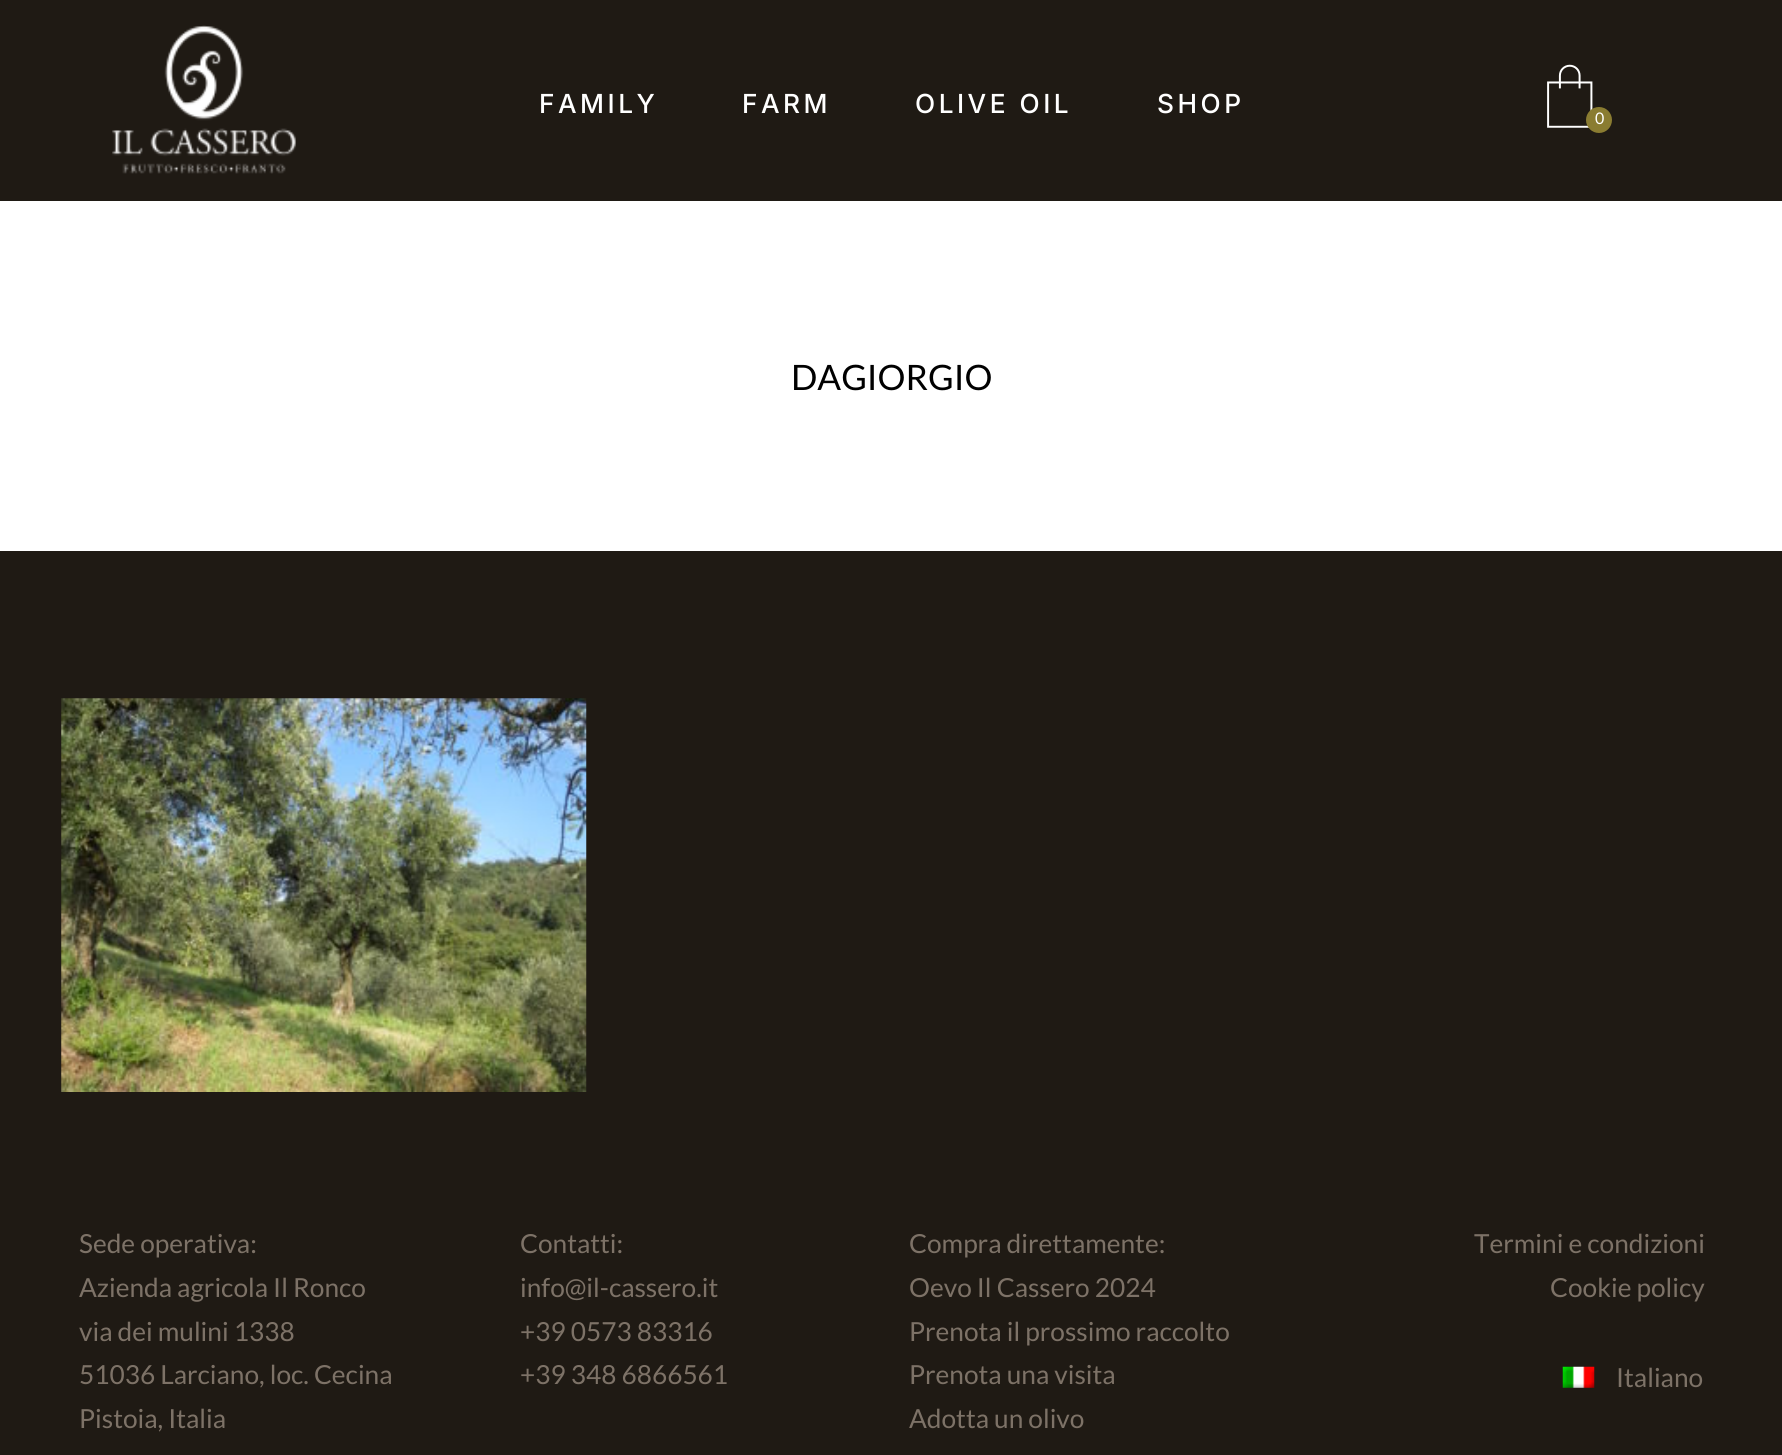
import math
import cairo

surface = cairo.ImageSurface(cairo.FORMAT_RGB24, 1782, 1455)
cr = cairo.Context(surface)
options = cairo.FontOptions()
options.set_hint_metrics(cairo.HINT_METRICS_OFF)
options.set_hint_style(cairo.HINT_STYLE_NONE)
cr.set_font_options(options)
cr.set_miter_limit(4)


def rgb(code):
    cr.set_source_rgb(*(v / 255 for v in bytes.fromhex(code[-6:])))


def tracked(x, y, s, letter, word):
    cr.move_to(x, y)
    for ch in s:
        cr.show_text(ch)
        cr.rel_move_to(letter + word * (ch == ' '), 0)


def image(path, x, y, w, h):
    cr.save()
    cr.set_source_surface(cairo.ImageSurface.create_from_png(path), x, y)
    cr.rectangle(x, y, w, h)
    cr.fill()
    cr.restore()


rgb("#1f1a14")
cr.paint()
image("img/1.png", 112, 25, 184, 149)
image("img/2.png", 1547, 64, 46, 64)
rgb("#8a7c31")
cr.arc(1599, 120, 12, 0, 2 * math.pi)
cr.fill_preserve()
cr.stroke()
rgb("#ffffff")
cr.rectangle(0, 201, 1782, 350)
cr.fill()
image("img/3.png", 61, 698, 526, 394)
image("img/4.png", 1562, 1366, 33, 22)
cr.select_font_face("Inter Medium")
cr.set_font_size(26.25)
for x, y, s in [
    (539, 113, "FAMILY"),
    (742, 113, "FARM"),
    (915, 113, "OLIVE OIL"),
    (1157, 113, "SHOP"),
]:
    tracked(x, y, s, 3.5, 0)
cr.select_font_face("Lato")
cr.set_font_size(16)
cr.move_to(1595, 124)
cr.show_text("0")
cr.set_font_size(35)
rgb("#000000")
cr.move_to(791, 390)
cr.show_text("DAGIORGIO")
cr.set_font_size(26.25)
rgb("#7d7267")
for x, y, s in [
    (79, 1253, "Sede operativa:"),
    (79, 1297, "Azienda agricola Il Ronco"),
    (79, 1341, "via dei mulini 1338"),
    (79, 1384, "51036 Larciano, loc. Cecina"),
    (79, 1428, "Pistoia, Italia"),
    (520, 1253, "Contatti:"),
    (520, 1297, "info@il-cassero.it"),
    (520, 1341, "+39 0573 83316"),
    (520, 1384, "+39 348 6866561"),
    (909, 1253, "Compra direttamente:"),
    (909, 1297, "Oevo Il Cassero 2024"),
    (909, 1341, "Prenota il prossimo raccolto"),
    (909, 1384, "Prenota una visita"),
    (909, 1428, "Adotta un olivo"),
    (1474, 1253, "Termini e condizioni"),
    (1550, 1297, "Cookie policy"),
    (1616, 1387, "Italiano"),
]:
    cr.move_to(x, y)
    cr.show_text(s)
surface.write_to_png("page.png")
